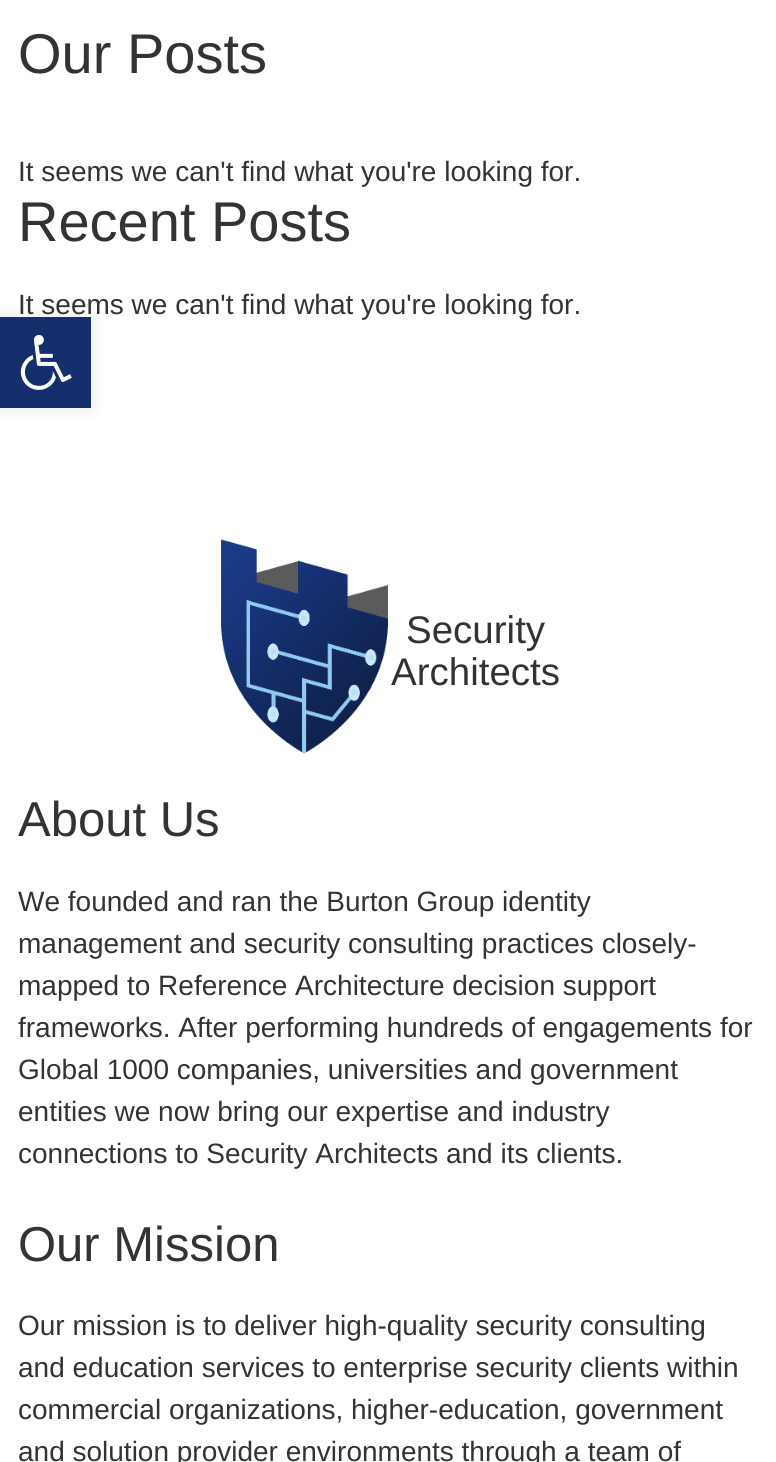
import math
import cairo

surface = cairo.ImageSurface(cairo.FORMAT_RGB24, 776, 1462)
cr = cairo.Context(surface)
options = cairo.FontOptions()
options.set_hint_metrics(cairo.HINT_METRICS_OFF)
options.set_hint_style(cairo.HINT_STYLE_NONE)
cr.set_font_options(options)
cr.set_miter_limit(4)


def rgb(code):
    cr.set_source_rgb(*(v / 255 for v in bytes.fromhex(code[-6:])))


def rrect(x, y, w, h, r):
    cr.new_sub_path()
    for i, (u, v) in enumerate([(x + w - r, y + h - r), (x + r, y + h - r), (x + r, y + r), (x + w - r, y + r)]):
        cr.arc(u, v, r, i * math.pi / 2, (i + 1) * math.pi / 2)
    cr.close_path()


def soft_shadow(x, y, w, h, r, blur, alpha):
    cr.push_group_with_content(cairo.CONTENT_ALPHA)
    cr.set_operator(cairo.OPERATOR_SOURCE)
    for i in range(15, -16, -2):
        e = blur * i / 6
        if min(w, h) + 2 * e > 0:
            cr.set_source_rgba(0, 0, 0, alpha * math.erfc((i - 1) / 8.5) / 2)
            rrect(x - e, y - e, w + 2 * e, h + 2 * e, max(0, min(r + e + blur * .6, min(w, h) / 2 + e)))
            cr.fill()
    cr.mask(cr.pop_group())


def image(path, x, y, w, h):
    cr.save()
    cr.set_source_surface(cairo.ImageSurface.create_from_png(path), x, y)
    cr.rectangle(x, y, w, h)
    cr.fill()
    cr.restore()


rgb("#ffffff")
cr.paint()
rgb("#000000")
soft_shadow(0, 317, 91, 91, 0, 9, 0.1)
image("img/2.png", 221, 539, 167, 215)
cr.select_font_face("Liberation Sans")
cr.set_font_size(56)
rgb("#333333")
cr.move_to(18, 73)
cr.show_text("Our Posts")
cr.set_font_size(28)
cr.move_to(18, 181)
cr.show_text("It seems we can't find what you're looking for.")
cr.set_font_size(56)
cr.move_to(18, 241)
cr.show_text("Recent Posts")
cr.set_font_size(28)
cr.move_to(18, 314)
cr.show_text("It seems we can't find what you're looking for.")
rgb("#152f6c")
cr.rectangle(0, 317, 91, 91)
cr.fill()
image("img/1.png", 20, 334, 52, 56)
cr.set_font_size(38.5)
rgb("#333333")
cr.move_to(406, 643)
cr.show_text("Security")
cr.move_to(391, 685)
cr.show_text("Architects")
cr.set_font_size(49)
cr.move_to(18, 836)
cr.show_text("About Us")
cr.set_font_size(28)
for x, y, s in [
    (18, 911, "We founded and ran the Burton Group identity"),
    (18, 953, "management and security consulting practices closely-"),
    (18, 995, "mapped to Reference Architecture decision support"),
    (18, 1037, "frameworks. After performing hundreds of engagements for"),
    (18, 1079, "Global 1000 companies, universities and government"),
    (18, 1121, "entities we now bring our expertise and industry"),
    (18, 1163, "connections to Security Architects and its clients."),
]:
    cr.move_to(x, y)
    cr.show_text(s)
cr.set_font_size(49)
cr.move_to(18, 1261)
cr.show_text("Our Mission")
cr.set_font_size(28)
for x, y, s in [
    (18, 1335, "Our mission is to deliver high-quality security consulting"),
    (18, 1377, "and education services to enterprise security clients within"),
    (18, 1419, "commercial organizations, higher-education, government"),
    (18, 1461, "and solution provider environments through a team of"),
]:
    cr.move_to(x, y)
    cr.show_text(s)
surface.write_to_png("page.png")
